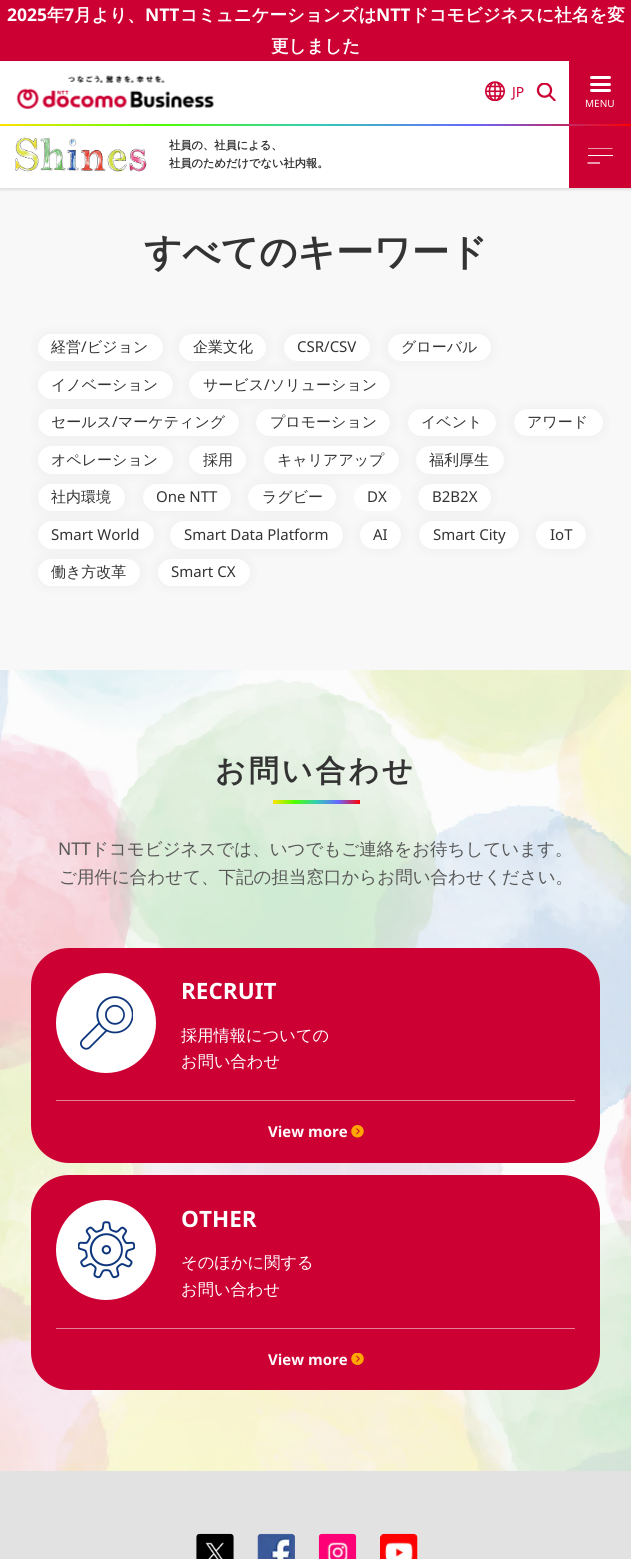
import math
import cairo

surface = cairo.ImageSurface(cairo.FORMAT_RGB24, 631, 1559)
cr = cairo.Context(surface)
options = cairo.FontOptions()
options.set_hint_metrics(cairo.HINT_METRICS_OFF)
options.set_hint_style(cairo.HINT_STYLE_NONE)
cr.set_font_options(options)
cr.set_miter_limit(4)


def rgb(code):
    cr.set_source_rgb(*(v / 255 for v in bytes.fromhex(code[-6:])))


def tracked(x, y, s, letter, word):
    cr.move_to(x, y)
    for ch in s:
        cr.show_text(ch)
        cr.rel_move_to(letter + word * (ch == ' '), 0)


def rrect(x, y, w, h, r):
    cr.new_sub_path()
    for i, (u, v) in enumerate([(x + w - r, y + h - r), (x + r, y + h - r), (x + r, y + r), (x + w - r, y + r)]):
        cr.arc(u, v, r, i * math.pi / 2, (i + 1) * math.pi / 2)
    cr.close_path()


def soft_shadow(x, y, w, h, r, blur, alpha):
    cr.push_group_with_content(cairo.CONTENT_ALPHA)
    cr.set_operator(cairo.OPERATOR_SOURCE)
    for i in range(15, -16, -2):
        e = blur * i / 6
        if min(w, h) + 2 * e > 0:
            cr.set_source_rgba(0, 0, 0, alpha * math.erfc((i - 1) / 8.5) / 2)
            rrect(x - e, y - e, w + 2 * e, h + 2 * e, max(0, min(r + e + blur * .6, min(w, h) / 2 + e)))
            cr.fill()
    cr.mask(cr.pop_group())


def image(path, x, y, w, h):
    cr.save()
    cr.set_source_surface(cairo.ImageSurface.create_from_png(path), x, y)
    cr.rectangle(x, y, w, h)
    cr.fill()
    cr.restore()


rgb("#f8f8f8")
cr.paint()
rgb("#000000")
soft_shadow(0, 125, 631, 65, 0, 1, 0.1)
rgb("#ffffff")
cr.rectangle(0, 61, 569, 63)
cr.fill()
rgb("#cc0033")
cr.rectangle(0, 0, 631, 61)
cr.fill()
image("img/1.png", 16, 75, 198, 34)
image("img/2.png", 485, 81, 20, 20)
image("img/3.png", 536, 83, 20, 18)
rgb("#cc0133")
cr.rectangle(569, 61, 62, 63)
cr.fill()
rgb("#ffffff")
rrect(590, 76, 21, 3, 1.5)
cr.fill()
rrect(590, 83, 21, 3, 1.5)
cr.fill()
rrect(590, 89, 21, 3, 1.5)
cr.fill()
cr.rectangle(0, 126, 569, 62)
cr.fill()
gradient = cairo.LinearGradient(0, 124, 631, 124)
gradient.add_color_stop_rgba(0, 1, 0.886, 0, 1)
gradient.add_color_stop_rgba(0.25, 0.306, 1, 0, 1)
gradient.add_color_stop_rgba(0.5, 0.2, 0.804, 0.71, 1)
gradient.add_color_stop_rgba(0.75, 0.404, 0.404, 1, 1)
gradient.add_color_stop_rgba(1, 1, 0, 0, 1)
cr.set_source(gradient)
cr.rectangle(0, 124, 631, 2)
cr.fill()
image("img/4.png", 15, 137, 132, 35)
rgb("#cc0033")
cr.rectangle(569, 126, 62, 62)
cr.fill()
cr.save()
cr.rectangle(588, 148, 25, 16)
cr.clip()
cr.new_path()
cr.move_to(587.5, 148)
cr.line_to(612.5, 148)
rgb("#ffffff")
cr.set_line_width(1.2)
cr.stroke()
cr.restore()
rgb("#ffffff")
cr.rectangle(588, 155, 25, 1)
cr.fill()
cr.new_path()
cr.move_to(587.5, 163)
cr.line_to(600, 163)
cr.set_line_width(1.2)
cr.stroke()
rgb("#000000")
soft_shadow(38, 334, 125, 27, 13.5, 6, 0.05)
rgb("#ffffff")
rrect(38, 334, 125, 27, 13.5)
cr.fill()
rgb("#000000")
soft_shadow(179, 334, 87, 27, 13.5, 6, 0.05)
rgb("#ffffff")
rrect(179, 334, 87, 27, 13.5)
cr.fill()
rgb("#000000")
soft_shadow(284, 334, 86, 27, 13.5, 6, 0.05)
rgb("#ffffff")
rrect(284, 334, 86, 27, 13.5)
cr.fill()
rgb("#000000")
soft_shadow(388, 334, 103, 27, 13.5, 6, 0.05)
rgb("#ffffff")
rrect(388, 334, 103, 27, 13.5)
cr.fill()
rgb("#000000")
soft_shadow(38, 371, 135, 28, 14, 6, 0.05)
rgb("#ffffff")
rrect(38, 371, 135, 28, 14)
cr.fill()
rgb("#000000")
soft_shadow(189, 371, 201, 28, 14, 6, 0.05)
rgb("#ffffff")
rrect(189, 371, 201, 28, 14)
cr.fill()
rgb("#000000")
soft_shadow(38, 409, 201, 27, 13.5, 6, 0.05)
rgb("#ffffff")
rrect(38, 409, 201, 27, 13.5)
cr.fill()
rgb("#000000")
soft_shadow(256, 409, 134, 27, 13.5, 6, 0.05)
rgb("#ffffff")
rrect(256, 409, 134, 27, 13.5)
cr.fill()
rgb("#000000")
soft_shadow(408, 409, 88, 27, 13.5, 6, 0.05)
rgb("#ffffff")
rrect(408, 409, 88, 27, 13.5)
cr.fill()
rgb("#000000")
soft_shadow(514, 409, 89, 27, 13.5, 6, 0.05)
rgb("#ffffff")
rrect(514, 409, 89, 27, 13.5)
cr.fill()
rgb("#000000")
soft_shadow(38, 446, 135, 28, 14, 6, 0.05)
rgb("#ffffff")
rrect(38, 446, 135, 28, 14)
cr.fill()
rgb("#000000")
soft_shadow(189, 446, 57, 28, 14, 6, 0.05)
rgb("#ffffff")
rrect(189, 446, 57, 28, 14)
cr.fill()
rgb("#000000")
soft_shadow(264, 446, 135, 28, 14, 6, 0.05)
rgb("#ffffff")
rrect(264, 446, 135, 28, 14)
cr.fill()
rgb("#000000")
soft_shadow(416, 446, 88, 28, 14, 6, 0.05)
rgb("#ffffff")
rrect(416, 446, 88, 28, 14)
cr.fill()
rgb("#000000")
soft_shadow(38, 484, 87, 27, 13.5, 6, 0.05)
rgb("#ffffff")
rrect(38, 484, 87, 27, 13.5)
cr.fill()
rgb("#000000")
soft_shadow(143, 484, 88, 27, 13.5, 6, 0.05)
rgb("#ffffff")
rrect(143, 484, 88, 27, 13.5)
cr.fill()
rgb("#000000")
soft_shadow(248, 484, 88, 27, 13.5, 6, 0.05)
rgb("#ffffff")
rrect(248, 484, 88, 27, 13.5)
cr.fill()
rrect(354, 484, 47, 27, 13.5)
cr.fill()
rgb("#000000")
soft_shadow(418, 484, 73, 27, 13.5, 6, 0.05)
rgb("#ffffff")
rrect(418, 484, 73, 27, 13.5)
cr.fill()
rgb("#000000")
soft_shadow(38, 521, 116, 28, 14, 6, 0.05)
rgb("#ffffff")
rrect(38, 521, 116, 28, 14)
cr.fill()
rgb("#000000")
soft_shadow(170, 521, 173, 28, 14, 6, 0.05)
rgb("#ffffff")
rrect(170, 521, 173, 28, 14)
cr.fill()
rgb("#000000")
soft_shadow(360, 521, 41, 28, 14, 6, 0.05)
rgb("#ffffff")
rrect(360, 521, 41, 28, 14)
cr.fill()
rgb("#000000")
soft_shadow(419, 521, 100, 28, 14, 6, 0.05)
rgb("#ffffff")
rrect(419, 521, 100, 28, 14)
cr.fill()
rgb("#000000")
soft_shadow(536, 521, 50, 28, 14, 6, 0.05)
rgb("#ffffff")
rrect(536, 521, 50, 28, 14)
cr.fill()
rgb("#000000")
soft_shadow(38, 559, 102, 27, 13.5, 6, 0.05)
rgb("#ffffff")
rrect(38, 559, 102, 27, 13.5)
cr.fill()
rgb("#000000")
soft_shadow(158, 559, 92, 27, 13.5, 6, 0.05)
rgb("#ffffff")
rrect(158, 559, 92, 27, 13.5)
cr.fill()
image("img/5.png", 0, 670, 631, 801)
gradient = cairo.LinearGradient(273, 802, 360, 802)
gradient.add_color_stop_rgba(0, 1, 0.886, 0, 1)
gradient.add_color_stop_rgba(0.25, 0.306, 1, 0, 1)
gradient.add_color_stop_rgba(0.5, 0.2, 0.804, 0.71, 1)
gradient.add_color_stop_rgba(0.75, 0.404, 0.404, 1, 1)
gradient.add_color_stop_rgba(1, 1, 0, 0, 1)
cr.set_source(gradient)
cr.rectangle(273, 800, 87, 4)
cr.fill()
rgb("#cc0033")
rrect(31, 948, 569, 215, 38)
cr.fill()
rgb("#ffffff")
cr.arc(106, 1023, 50, 0, 2 * math.pi)
cr.fill()
image("img/6.png", 80, 996, 53, 54)
rgb("#e68099")
cr.rectangle(56, 1100, 519, 1)
cr.fill()
image("img/7.png", 351, 1125, 13, 13)
rgb("#cc0033")
rrect(31, 1175, 569, 215, 38)
cr.fill()
rgb("#ffffff")
cr.arc(106, 1250, 50, 0, 2 * math.pi)
cr.fill()
image("img/8.png", 78, 1221, 57, 58)
rgb("#e68099")
cr.rectangle(56, 1328, 519, 1)
cr.fill()
image("img/9.png", 351, 1353, 13, 12)
rgb("#e2e2e2")
cr.rectangle(0, 1471, 631, 88)
cr.fill()
image("img/10.png", 196, 1533, 38, 26)
image("img/11.png", 257, 1533, 38, 26)
image("img/12.png", 318, 1533, 39, 26)
image("img/13.png", 380, 1533, 38, 26)
cr.select_font_face("Noto Sans", cairo.FONT_SLANT_NORMAL, cairo.FONT_WEIGHT_BOLD)
cr.set_font_size(17.5)
rgb("#ffffff")
cr.move_to(7, 21)
cr.show_text("2025")
cr.select_font_face("WenQuanYi Zen Hei", cairo.FONT_SLANT_NORMAL, cairo.FONT_WEIGHT_BOLD)
cr.move_to(47, 21)
cr.show_text("年")
cr.select_font_face("Noto Sans", cairo.FONT_SLANT_NORMAL, cairo.FONT_WEIGHT_BOLD)
cr.move_to(64, 21)
cr.show_text("7")
cr.select_font_face("WenQuanYi Zen Hei", cairo.FONT_SLANT_NORMAL, cairo.FONT_WEIGHT_BOLD)
cr.move_to(74, 21)
cr.show_text("月より、")
cr.select_font_face("Noto Sans", cairo.FONT_SLANT_NORMAL, cairo.FONT_WEIGHT_BOLD)
cr.move_to(145, 21)
cr.show_text("NTT")
cr.select_font_face("WenQuanYi Zen Hei", cairo.FONT_SLANT_NORMAL, cairo.FONT_WEIGHT_BOLD)
cr.move_to(180, 21)
cr.show_text("コミュニケーションズは")
cr.select_font_face("Noto Sans", cairo.FONT_SLANT_NORMAL, cairo.FONT_WEIGHT_BOLD)
cr.move_to(376, 21)
cr.show_text("NTT")
cr.select_font_face("WenQuanYi Zen Hei", cairo.FONT_SLANT_NORMAL, cairo.FONT_WEIGHT_BOLD)
cr.move_to(411, 21)
cr.show_text("ドコモビジネスに社名を変")
cr.move_to(271, 52)
cr.show_text("更しました")
cr.select_font_face("Noto Sans")
cr.set_font_size(14)
rgb("#cc0033")
cr.move_to(512, 97)
cr.show_text("JP")
cr.set_font_size(10)
rgb("#ffffff")
cr.move_to(585, 107)
cr.show_text("MENU")
cr.select_font_face("WenQuanYi Zen Hei", cairo.FONT_SLANT_NORMAL, cairo.FONT_WEIGHT_BOLD)
cr.set_font_size(11.25)
rgb("#333333")
cr.move_to(169, 149)
cr.show_text("社員の、社員による、")
cr.move_to(169, 167)
cr.show_text("社員のためだけでない社内報。")
cr.set_font_size(37.5)
cr.move_to(144, 265)
cr.show_text("すべてのキーワード")
cr.select_font_face("WenQuanYi Zen Hei Medium")
cr.set_font_size(15)
cr.move_to(51, 352)
cr.show_text("経営")
cr.select_font_face("Noto Sans")
cr.move_to(81, 352)
cr.show_text("/")
cr.select_font_face("WenQuanYi Zen Hei Medium")
cr.move_to(87, 352)
cr.show_text("ビジョン")
cr.move_to(193, 352)
cr.show_text("企業文化")
cr.select_font_face("Noto Sans")
cr.move_to(297, 352)
cr.show_text("CSR/CSV")
cr.select_font_face("WenQuanYi Zen Hei Medium")
for x, y, s in [
    (401, 352, "グローバル"),
    (51, 390, "イノベーション"),
    (203, 390, "サービス"),
]:
    cr.move_to(x, y)
    cr.show_text(s)
cr.select_font_face("Noto Sans")
cr.move_to(264, 390)
cr.show_text("/")
cr.select_font_face("WenQuanYi Zen Hei Medium")
cr.move_to(270, 390)
cr.show_text("ソリューション")
cr.move_to(51, 427)
cr.show_text("セールス")
cr.select_font_face("Noto Sans")
cr.move_to(112, 427)
cr.show_text("/")
cr.select_font_face("WenQuanYi Zen Hei Medium")
for x, y, s in [
    (118, 427, "マーケティング"),
    (270, 427, "プロモーション"),
    (421, 427, "イベント"),
    (527, 427, "アワード"),
    (51, 465, "オペレーション"),
    (203, 465, "採用"),
    (277, 465, "キャリアアップ"),
    (429, 465, "福利厚生"),
    (51, 502, "社内環境"),
]:
    cr.move_to(x, y)
    cr.show_text(s)
cr.select_font_face("Noto Sans")
cr.move_to(156, 502)
cr.show_text("One NTT")
cr.select_font_face("WenQuanYi Zen Hei Medium")
cr.move_to(262, 502)
cr.show_text("ラグビー")
cr.select_font_face("Noto Sans")
for x, y, s in [
    (367, 502, "DX"),
    (432, 502, "B2B2X"),
    (51, 540, "Smart World"),
    (184, 540, "Smart Data Platform"),
    (373, 540, "AI"),
    (433, 540, "Smart City"),
    (550, 540, "IoT"),
]:
    cr.move_to(x, y)
    cr.show_text(s)
cr.select_font_face("WenQuanYi Zen Hei Medium")
cr.move_to(51, 577)
cr.show_text("働き方改革")
cr.select_font_face("Noto Sans")
cr.move_to(171, 577)
cr.show_text("Smart CX")
cr.select_font_face("WenQuanYi Zen Hei", cairo.FONT_SLANT_NORMAL, cairo.FONT_WEIGHT_BOLD)
cr.set_font_size(30)
tracked(215, 781, "お問い合わせ", 3, 0)
cr.select_font_face("Noto Sans")
cr.set_font_size(17.5)
rgb("#585858")
cr.move_to(58, 855)
cr.show_text("NTT")
cr.select_font_face("WenQuanYi Zen Hei Medium")
cr.move_to(91, 855)
cr.show_text("ドコモビジネスでは、いつでもご連絡をお待ちしています。")
cr.move_to(59, 883)
cr.show_text("ご用件に合わせて、下記の担当窓口からお問い合わせください。")
cr.select_font_face("Noto Sans", cairo.FONT_SLANT_NORMAL, cairo.FONT_WEIGHT_BOLD)
cr.set_font_size(22.5)
rgb("#ffffff")
cr.move_to(181, 999)
cr.show_text("RECRUIT")
cr.select_font_face("WenQuanYi Zen Hei Medium")
cr.set_font_size(16.25)
cr.move_to(181, 1041)
cr.show_text("採用情報についての")
cr.move_to(181, 1067)
cr.show_text("お問い合わせ")
cr.select_font_face("Noto Sans", cairo.FONT_SLANT_NORMAL, cairo.FONT_WEIGHT_BOLD)
cr.set_font_size(15)
cr.move_to(268, 1137)
cr.show_text("View more")
cr.set_font_size(22.5)
cr.move_to(181, 1227)
cr.show_text("OTHER")
cr.select_font_face("WenQuanYi Zen Hei Medium")
cr.set_font_size(16.25)
cr.move_to(181, 1268)
cr.show_text("そのほかに関する")
cr.move_to(181, 1295)
cr.show_text("お問い合わせ")
cr.select_font_face("Noto Sans", cairo.FONT_SLANT_NORMAL, cairo.FONT_WEIGHT_BOLD)
cr.set_font_size(15)
cr.move_to(268, 1365)
cr.show_text("View more")
surface.write_to_png("page.png")
